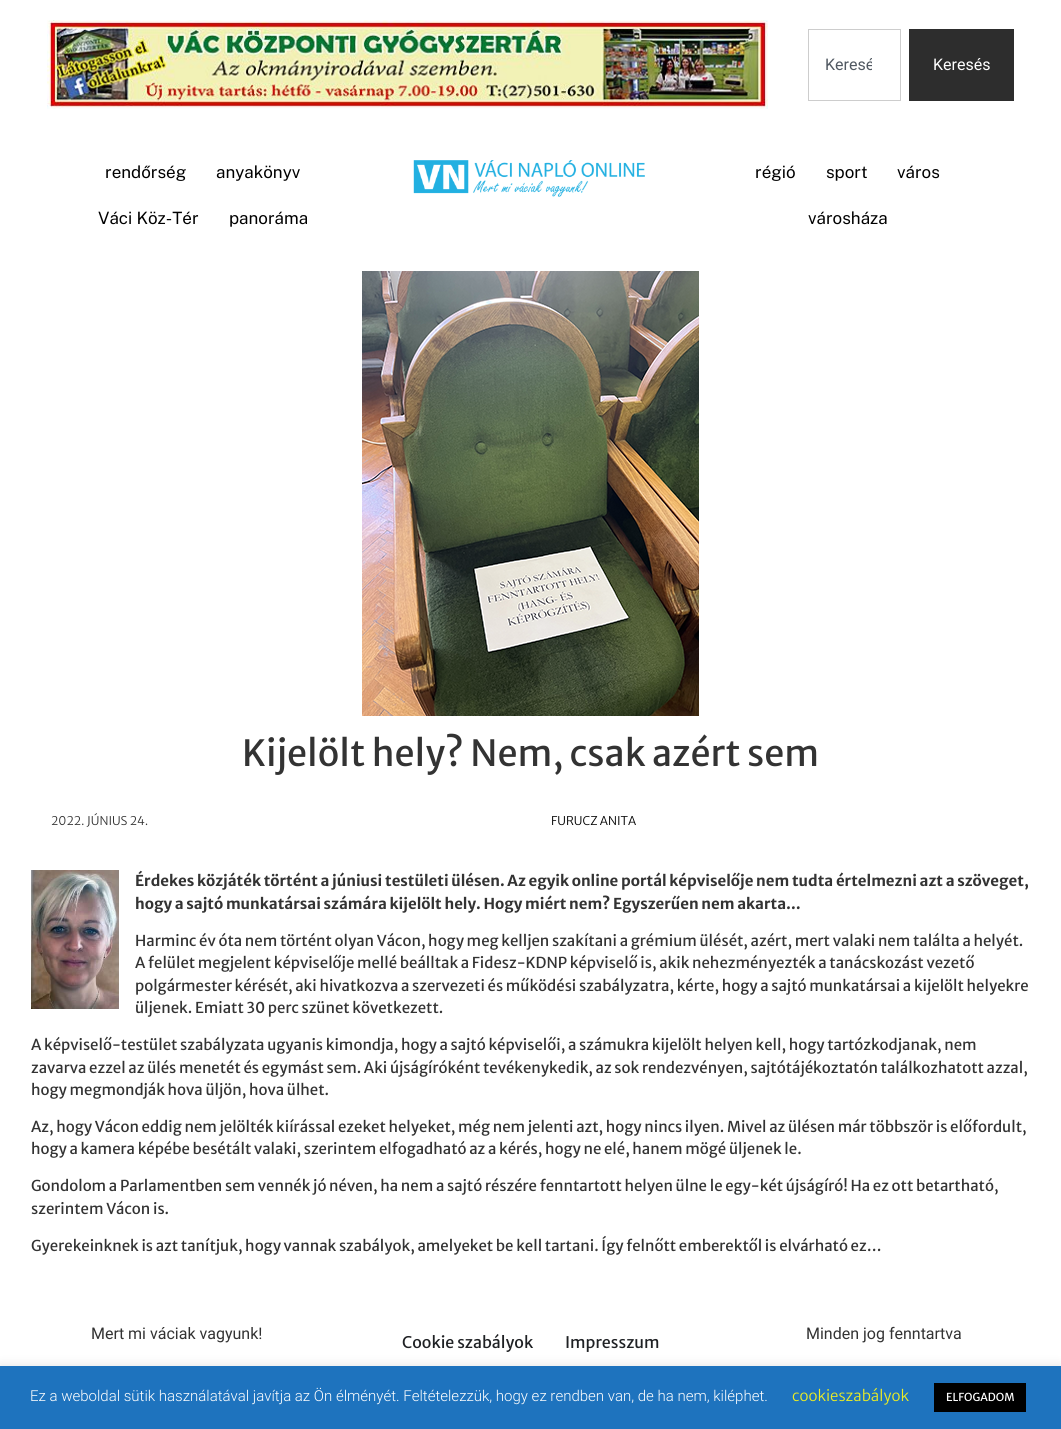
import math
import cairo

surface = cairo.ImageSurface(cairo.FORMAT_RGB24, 1061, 1429)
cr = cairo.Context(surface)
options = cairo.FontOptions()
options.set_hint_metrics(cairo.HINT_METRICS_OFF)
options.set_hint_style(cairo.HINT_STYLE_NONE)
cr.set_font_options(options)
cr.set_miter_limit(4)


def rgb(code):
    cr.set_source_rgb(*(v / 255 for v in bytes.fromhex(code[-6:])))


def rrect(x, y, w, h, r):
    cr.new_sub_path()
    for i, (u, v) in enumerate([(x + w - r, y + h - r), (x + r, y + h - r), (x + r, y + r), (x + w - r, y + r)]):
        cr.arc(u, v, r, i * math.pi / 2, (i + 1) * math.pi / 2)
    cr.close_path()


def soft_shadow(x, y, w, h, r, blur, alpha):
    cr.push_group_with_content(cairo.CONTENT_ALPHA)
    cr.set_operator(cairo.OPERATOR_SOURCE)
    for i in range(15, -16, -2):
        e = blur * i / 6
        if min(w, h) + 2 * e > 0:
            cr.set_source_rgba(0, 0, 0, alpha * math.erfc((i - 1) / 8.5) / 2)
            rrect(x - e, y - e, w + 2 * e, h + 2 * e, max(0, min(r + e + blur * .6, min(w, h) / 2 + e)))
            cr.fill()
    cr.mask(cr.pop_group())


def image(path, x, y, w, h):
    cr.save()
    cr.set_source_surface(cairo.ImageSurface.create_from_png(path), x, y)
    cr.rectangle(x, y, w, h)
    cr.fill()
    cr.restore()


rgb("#ffffff")
cr.paint()
image("img/1.png", 47, 20, 721, 89)
cr.rectangle(808.5, 29.5, 92, 71)
rgb("#cdcdcd")
cr.set_line_width(1)
cr.stroke()
rgb("#2d2d2d")
cr.rectangle(909, 29, 105, 72)
cr.fill()
image("img/2.png", 413, 160, 232, 37)
image("img/3.png", 362, 271, 337, 445)
image("img/4.png", 31, 870, 88, 139)
rgb("#acabab")
soft_shadow(0, 1365, 1061, 63, 0, 5, 0.3)
rgb("#1e73be")
cr.rectangle(0, 1366, 1061, 63)
cr.fill()
rgb("#000000")
cr.rectangle(934, 1383, 92, 29)
cr.fill()
cr.save()
cr.rectangle(825, 55, 47, 19)
cr.clip()
cr.select_font_face("Roboto")
cr.set_font_size(16)
rgb("#515962")
cr.move_to(825, 70)
cr.show_text("Keresé")
cr.restore()
cr.select_font_face("Roboto")
cr.set_font_size(16)
rgb("#ffffff")
cr.move_to(933, 70)
cr.show_text("Keresés")
cr.select_font_face("Public Sans")
cr.set_font_size(17)
rgb("#000000")
for x, y, s in [
    (105, 178, "rendőrség"),
    (216, 178, "anyakönyv"),
    (98, 224, "Váci Köz-Tér"),
    (229, 224, "panoráma"),
    (755, 178, "régió"),
    (826, 178, "sport"),
    (897, 178, "város"),
    (808, 224, "városháza"),
]:
    cr.move_to(x, y)
    cr.show_text(s)
cr.select_font_face("Merriweather Sans")
cr.set_font_size(36)
rgb("#333333")
cr.move_to(242, 766)
cr.show_text("Kijelölt hely? Nem, csak azért sem")
cr.select_font_face("Merriweather Sans Light")
cr.set_font_size(12)
cr.move_to(51, 825)
cr.show_text("2022. JÚNIUS 24.")
rgb("#000000")
cr.move_to(551, 825)
cr.show_text("FURUCZ ANITA")
cr.select_font_face("Merriweather Sans", cairo.FONT_SLANT_NORMAL, cairo.FONT_WEIGHT_BOLD)
cr.set_font_size(15)
rgb("#333333")
cr.move_to(135, 886)
cr.show_text("Érdekes közjáték történt a júniusi testületi ülésen. Az egyik online portál képviselője nem tudta értelmezni azt a szöveget,")
cr.move_to(135, 909)
cr.show_text("hogy a sajtó munkatársai számára kijelölt hely. Hogy miért nem? Egyszerűen nem akarta…")
cr.select_font_face("Merriweather Sans")
for x, y, s in [
    (135, 946, "Harminc év óta nem történt olyan Vácon, hogy meg kelljen szakítani a grémium ülését, azért, mert valaki nem találta a helyét."),
    (135, 968, "A felület megjelent képviselője mellé beálltak a Fidesz-KDNP képviselő is, akik nehezményezték a tanácskozást vezető"),
    (135, 991, "polgármester kérését, aki hivatkozva a szervezeti és működési szabályzatra, kérte, hogy a sajtó munkatársai a kijelölt helyekre"),
    (135, 1013, "üljenek. Emiatt 30 perc szünet következett."),
    (31, 1050, "A képviselő-testület szabályzata ugyanis kimondja, hogy a sajtó képviselői, a számukra kijelölt helyen kell, hogy tartózkodjanak, nem"),
    (31, 1073, "zavarva ezzel az ülés menetét és egymást sem. Aki újságíróként tevékenykedik, az sok rendezvényen, sajtótájékoztatón találkozhatott azzal,"),
    (31, 1095, "hogy megmondják hova üljön, hova ülhet."),
    (31, 1132, "Az, hogy Vácon eddig nem jelölték kiírással ezeket helyeket, még nem jelenti azt, hogy nincs ilyen. Mivel az ülésen már többször is előfordult,"),
    (31, 1154, "hogy a kamera képébe besétált valaki, szerintem elfogadható az a kérés, hogy ne elé, hanem mögé üljenek le."),
    (31, 1191, "Gondolom a Parlamentben sem vennék jó néven, ha nem a sajtó részére fenntartott helyen ülne le egy-két újságíró! Ha ez ott betartható,"),
    (31, 1214, "szerintem Vácon is."),
    (31, 1251, "Gyerekeinknek is azt tanítjuk, hogy vannak szabályok, amelyeket be kell tartani. Így felnőtt emberektől is elvárható ez…"),
]:
    cr.move_to(x, y)
    cr.show_text(s)
cr.select_font_face("Roboto")
cr.set_font_size(16)
cr.move_to(91, 1339)
cr.show_text("Mert mi váciak vagyunk!")
cr.select_font_face("Merriweather Sans")
rgb("#1f2124")
cr.move_to(402, 1348)
cr.show_text("Cookie szabályok")
cr.move_to(565, 1348)
cr.show_text("Impresszum")
cr.select_font_face("Roboto")
rgb("#333333")
cr.move_to(806, 1339)
cr.show_text("Minden jog fenntartva")
cr.select_font_face("Roboto Light")
cr.set_font_size(15)
rgb("#ffffff")
cr.move_to(30, 1401)
cr.show_text("Ez a weboldal sütik használatával javítja az Ön élményét. Feltételezzük, hogy ez rendben van, de ha nem, kiléphet.")
cr.select_font_face("Merriweather Sans Light")
rgb("#eeee22")
cr.move_to(792, 1401)
cr.show_text("cookieszabályok")
cr.select_font_face("Merriweather Sans")
cr.set_font_size(11)
rgb("#ffffff")
cr.move_to(946, 1401)
cr.show_text("ELFOGADOM")
surface.write_to_png("page.png")
